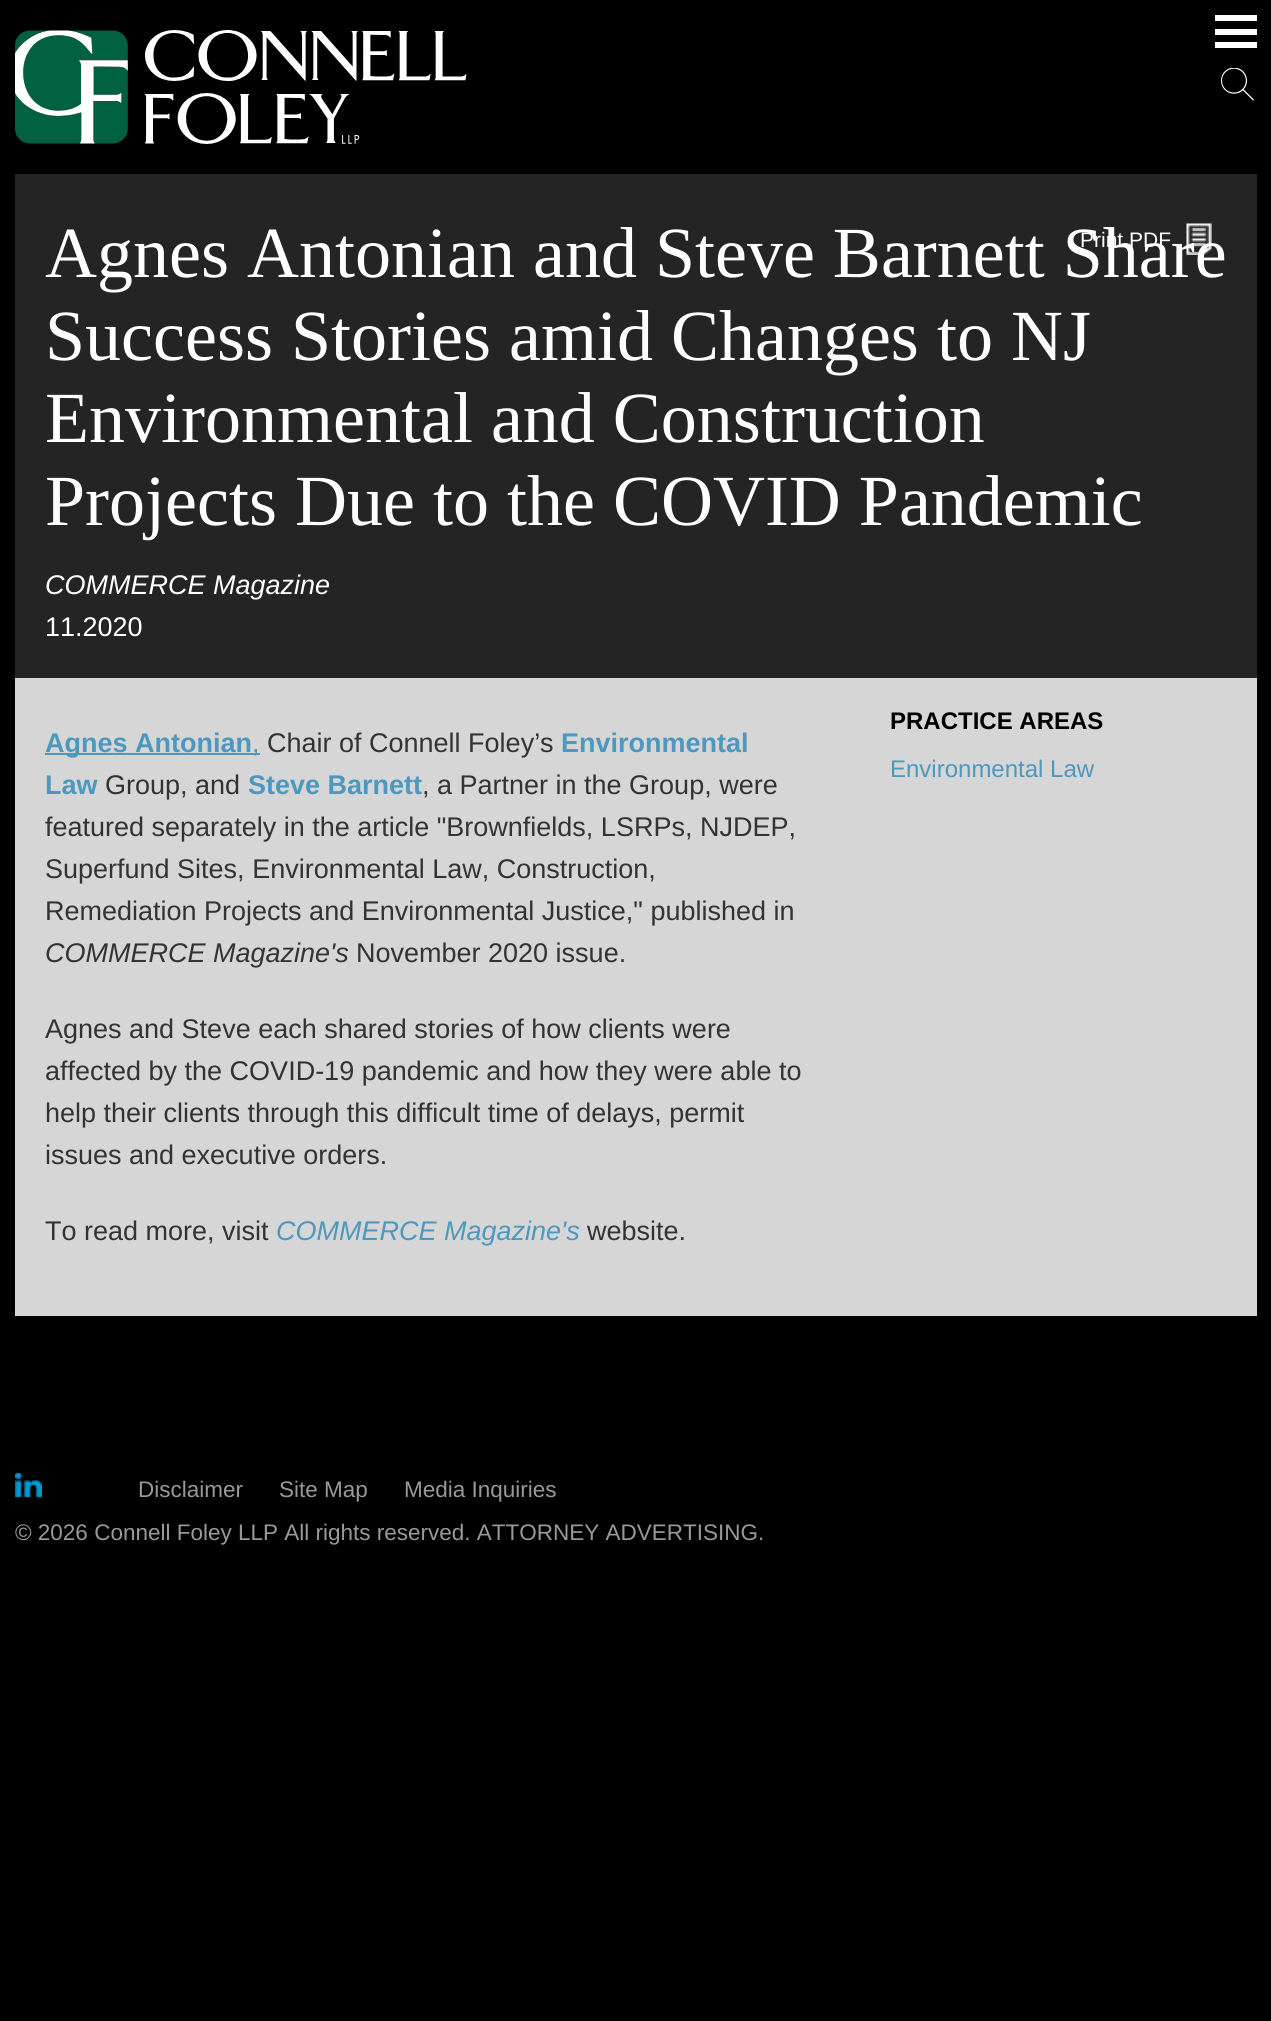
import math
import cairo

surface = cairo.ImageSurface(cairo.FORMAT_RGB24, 1271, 2021)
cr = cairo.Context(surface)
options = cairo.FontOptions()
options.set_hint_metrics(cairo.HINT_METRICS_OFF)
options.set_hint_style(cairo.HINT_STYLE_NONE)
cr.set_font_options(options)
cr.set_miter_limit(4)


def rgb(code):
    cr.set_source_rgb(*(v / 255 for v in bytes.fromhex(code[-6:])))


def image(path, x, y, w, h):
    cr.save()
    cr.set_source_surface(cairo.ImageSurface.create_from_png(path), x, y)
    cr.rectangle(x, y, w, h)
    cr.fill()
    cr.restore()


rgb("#000000")
cr.paint()
image("img/1.png", 15, 30, 452, 114)
for x, y, w, h, color in [
    (1215, 15, 42, 6, "#ffffff"),
    (1215, 42, 42, 6, "#ffffff"),
    (1215, 29, 42, 6, "#ffffff"),
]:
    rgb(color)
    cr.rectangle(x, y, w, h)
    cr.fill()
image("img/2.png", 1221, 68, 33, 33)
for x, y, w, h, color in [
    (15, 174, 1242, 504, "#242424"),
    (15, 678, 1242, 638, "#d6d6d6"),
    (45, 753, 215, 2, "#4c98bf"),
]:
    rgb(color)
    cr.rectangle(x, y, w, h)
    cr.fill()
image("img/4.png", 15, 1473, 27, 25)
cr.select_font_face("Liberation Serif")
cr.set_font_size(72)
rgb("#ffffff")
for x, y, s in [
    (45, 277, "Agnes Antonian and Steve Barnett Share"),
    (45, 360, "Success Stories amid Changes to NJ"),
    (45, 442, "Environmental and Construction"),
    (45, 525, "Projects Due to the COVID Pandemic"),
]:
    cr.move_to(x, y)
    cr.show_text(s)
image("img/3.png", 1186, 223, 26, 32)
cr.select_font_face("Liberation Sans")
cr.set_font_size(21)
cr.move_to(1080, 247)
cr.show_text("Print PDF")
cr.select_font_face("Liberation Sans", cairo.FONT_SLANT_ITALIC)
cr.set_font_size(27)
cr.move_to(45, 594)
cr.show_text("COMMERCE Magazine")
cr.select_font_face("Liberation Sans")
cr.move_to(45, 636)
cr.show_text("11.2020")
cr.select_font_face("Liberation Sans", cairo.FONT_SLANT_NORMAL, cairo.FONT_WEIGHT_BOLD)
rgb("#4c98bf")
cr.move_to(45, 752)
cr.show_text("Agnes Antonian")
cr.select_font_face("Liberation Sans")
cr.move_to(252, 752)
cr.show_text(",")
rgb("#333333")
cr.move_to(267, 752)
cr.show_text("Chair of Connell Foley’s")
cr.select_font_face("Liberation Sans", cairo.FONT_SLANT_NORMAL, cairo.FONT_WEIGHT_BOLD)
rgb("#4c98bf")
cr.move_to(561, 752)
cr.show_text("Environmental")
cr.move_to(45, 794)
cr.show_text("Law")
cr.select_font_face("Liberation Sans")
rgb("#333333")
cr.move_to(105, 794)
cr.show_text("Group, and")
cr.select_font_face("Liberation Sans", cairo.FONT_SLANT_NORMAL, cairo.FONT_WEIGHT_BOLD)
rgb("#4c98bf")
cr.move_to(248, 794)
cr.show_text("Steve Barnett")
cr.select_font_face("Liberation Sans")
rgb("#333333")
for x, y, s in [
    (422, 794, ", a Partner in the Group, were"),
    (45, 836, "featured separately in the article \"Brownfields, LSRPs, NJDEP,"),
    (45, 878, "Superfund Sites, Environmental Law, Construction,"),
    (45, 920, "Remediation Projects and Environmental Justice,\" published in"),
]:
    cr.move_to(x, y)
    cr.show_text(s)
cr.select_font_face("Liberation Sans", cairo.FONT_SLANT_ITALIC)
cr.move_to(45, 962)
cr.show_text("COMMERCE Magazine's")
cr.select_font_face("Liberation Sans")
for x, y, s in [
    (356, 962, "November 2020 issue."),
    (45, 1038, "Agnes and Steve each shared stories of how clients were"),
    (45, 1080, "affected by the COVID-19 pandemic and how they were able to"),
    (45, 1122, "help their clients through this difficult time of delays, permit"),
    (45, 1164, "issues and executive orders."),
    (45, 1240, "To read more, visit"),
]:
    cr.move_to(x, y)
    cr.show_text(s)
cr.select_font_face("Liberation Sans", cairo.FONT_SLANT_ITALIC)
rgb("#4c98bf")
cr.move_to(276, 1240)
cr.show_text("COMMERCE Magazine's")
cr.select_font_face("Liberation Sans")
rgb("#333333")
cr.move_to(587, 1240)
cr.show_text("website.")
cr.select_font_face("Liberation Sans", cairo.FONT_SLANT_NORMAL, cairo.FONT_WEIGHT_BOLD)
cr.set_font_size(24)
rgb("#000000")
cr.move_to(890, 729)
cr.show_text("PRACTICE AREAS")
cr.select_font_face("Liberation Sans")
rgb("#4c98bf")
cr.move_to(890, 777)
cr.show_text("Environmental Law")
cr.set_font_size(22.5)
rgb("#999999")
for x, y, s in [
    (138, 1497, "Disclaimer"),
    (279, 1497, "Site Map"),
    (404, 1497, "Media Inquiries"),
    (15, 1540, "© 2026 Connell Foley LLP All rights reserved. ATTORNEY ADVERTISING."),
]:
    cr.move_to(x, y)
    cr.show_text(s)
surface.write_to_png("page.png")
